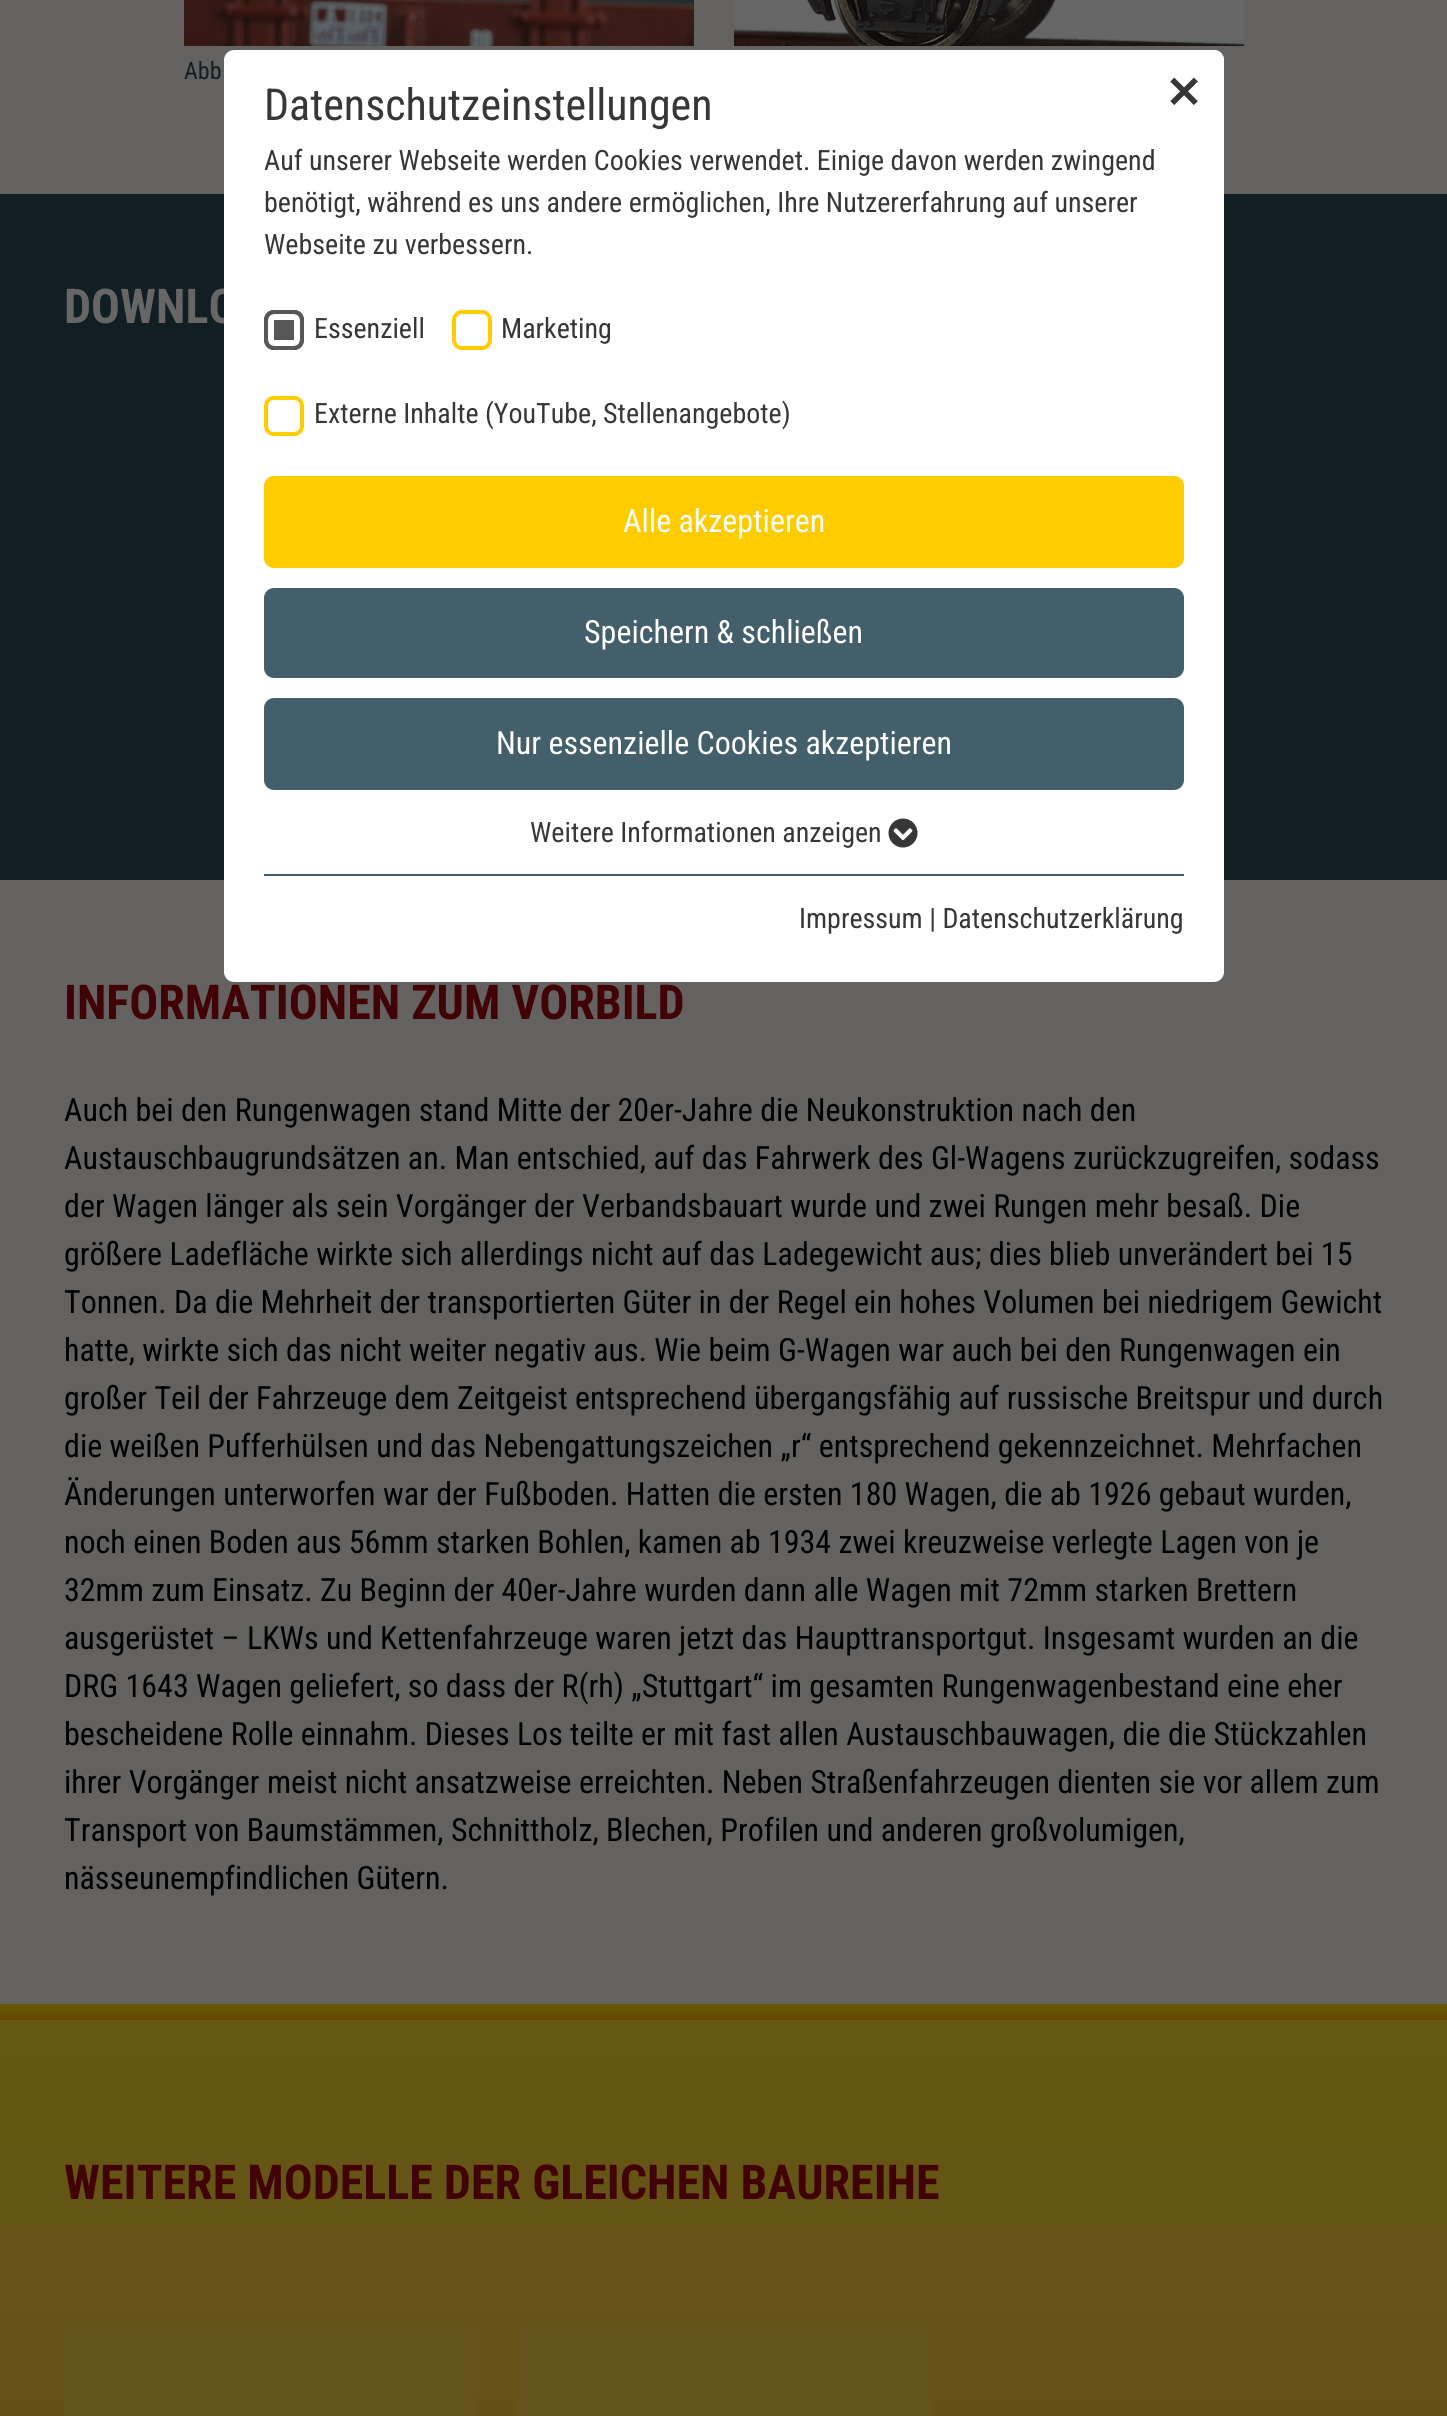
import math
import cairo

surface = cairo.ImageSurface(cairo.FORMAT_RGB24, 1447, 2416)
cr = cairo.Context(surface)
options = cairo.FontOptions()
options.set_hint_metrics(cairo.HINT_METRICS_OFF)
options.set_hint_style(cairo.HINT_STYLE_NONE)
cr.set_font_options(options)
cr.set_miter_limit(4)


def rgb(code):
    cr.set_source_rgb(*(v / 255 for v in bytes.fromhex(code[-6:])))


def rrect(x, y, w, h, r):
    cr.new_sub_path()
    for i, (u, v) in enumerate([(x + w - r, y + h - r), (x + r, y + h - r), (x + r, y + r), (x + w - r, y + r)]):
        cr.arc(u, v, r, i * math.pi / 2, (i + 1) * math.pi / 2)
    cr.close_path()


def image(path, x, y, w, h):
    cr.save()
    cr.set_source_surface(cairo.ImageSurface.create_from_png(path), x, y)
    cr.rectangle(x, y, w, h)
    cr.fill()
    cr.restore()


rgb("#636260")
cr.paint()
image("img/1.png", 734, 0, 510, 46)
image("img/2.png", 184, 0, 510, 46)
rgb("#111e24")
cr.rectangle(0, 194, 1447, 686)
cr.fill()
gradient = cairo.LinearGradient(724, 2004, 724, 2020)
gradient.add_color_stop_rgba(0, 0.4, 0.361, 0.012, 1)
gradient.add_color_stop_rgba(1, 0.4, 0.259, 0, 1)
cr.set_source(gradient)
cr.rectangle(0, 2004, 1447, 16)
cr.fill()
gradient = cairo.LinearGradient(724, 2020, 724, 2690)
gradient.add_color_stop_rgba(0, 0.396, 0.341, 0.078, 1)
gradient.add_color_stop_rgba(1, 0.392, 0.31, 0.086, 1)
cr.set_source(gradient)
cr.rectangle(0, 2020, 1447, 396)
cr.fill()
rgb("#64541c")
cr.rectangle(64, 2328, 414, 88)
cr.fill()
cr.rectangle(518, 2328, 412, 88)
cr.fill()
cr.select_font_face("Roboto Condensed")
cr.set_font_size(24)
rgb("#111e24")
cr.move_to(184, 79)
cr.show_text("Abb")
cr.select_font_face("Roboto Condensed", cairo.FONT_SLANT_NORMAL, cairo.FONT_WEIGHT_BOLD)
cr.set_font_size(48)
rgb("#666666")
cr.move_to(64, 323)
cr.show_text("DOWNLO")
rgb("#410205")
cr.move_to(64, 1019)
cr.show_text("INFORMATIONEN ZUM VORBILD")
cr.select_font_face("Roboto Condensed")
cr.set_font_size(32)
rgb("#000000")
for x, y, s in [
    (64, 1121, "Auch bei den Rungenwagen stand Mitte der 20er-Jahre die Neukonstruktion nach den"),
    (64, 1169, "Austauschbaugrundsätzen an. Man entschied, auf das Fahrwerk des Gl-Wagens zurückzugreifen, sodass"),
    (64, 1217, "der Wagen länger als sein Vorgänger der Verbandsbauart wurde und zwei Rungen mehr besaß. Die"),
    (64, 1265, "größere Ladefläche wirkte sich allerdings nicht auf das Ladegewicht aus; dies blieb unverändert bei 15"),
    (64, 1313, "Tonnen. Da die Mehrheit der transportierten Güter in der Regel ein hohes Volumen bei niedrigem Gewicht"),
    (64, 1361, "hatte, wirkte sich das nicht weiter negativ aus. Wie beim G-Wagen war auch bei den Rungenwagen ein"),
    (64, 1409, "großer Teil der Fahrzeuge dem Zeitgeist entsprechend übergangsfähig auf russische Breitspur und durch"),
    (64, 1457, "die weißen Pufferhülsen und das Nebengattungszeichen „r“ entsprechend gekennzeichnet. Mehrfachen"),
    (64, 1505, "Änderungen unterworfen war der Fußboden. Hatten die ersten 180 Wagen, die ab 1926 gebaut wurden,"),
    (64, 1553, "noch einen Boden aus 56mm starken Bohlen, kamen ab 1934 zwei kreuzweise verlegte Lagen von je"),
    (64, 1601, "32mm zum Einsatz. Zu Beginn der 40er-Jahre wurden dann alle Wagen mit 72mm starken Brettern"),
    (64, 1649, "ausgerüstet – LKWs und Kettenfahrzeuge waren jetzt das Haupttransportgut. Insgesamt wurden an die"),
    (64, 1697, "DRG 1643 Wagen geliefert, so dass der R(rh) „Stuttgart“ im gesamten Rungenwagenbestand eine eher"),
    (64, 1745, "bescheidene Rolle einnahm. Dieses Los teilte er mit fast allen Austauschbauwagen, die die Stückzahlen"),
    (64, 1793, "ihrer Vorgänger meist nicht ansatzweise erreichten. Neben Straßenfahrzeugen dienten sie vor allem zum"),
    (64, 1841, "Transport von Baumstämmen, Schnittholz, Blechen, Profilen und anderen großvolumigen,"),
    (64, 1889, "nässeunempfindlichen Gütern."),
]:
    cr.move_to(x, y)
    cr.show_text(s)
cr.select_font_face("Roboto Condensed", cairo.FONT_SLANT_NORMAL, cairo.FONT_WEIGHT_BOLD)
cr.set_font_size(48)
rgb("#410205")
cr.move_to(64, 2199)
cr.show_text("WEITERE MODELLE DER GLEICHEN BAUREIHE")
rgb("#ffffff")
rrect(224, 50, 1000, 932, 10)
cr.fill()
cr.select_font_face("Roboto Condensed")
cr.set_font_size(44)
rgb("#373737")
cr.move_to(264, 120)
cr.show_text("Datenschutzeinstellungen")
rgb("#ffffff")
cr.new_path()
cr.move_to(1144, 50)
cr.line_to(1214, 50)
cr.curve_to(1219.5, 50, 1224, 54.5, 1224, 60)
cr.line_to(1224, 136)
cr.line_to(1144, 136)
cr.close_path()
cr.fill()
cr.select_font_face("DejaVu Sans", cairo.FONT_SLANT_NORMAL, cairo.FONT_WEIGHT_BOLD)
rgb("#373737")
cr.move_to(1165, 108)
cr.show_text("✕")
cr.select_font_face("Roboto Condensed")
cr.set_font_size(28)
for x, y, s in [
    (264, 170, "Auf unserer Webseite werden Cookies verwendet. Einige davon werden zwingend"),
    (264, 212, "benötigt, während es uns andere ermöglichen, Ihre Nutzererfahrung auf unserer"),
    (264, 254, "Webseite zu verbessern."),
]:
    cr.move_to(x, y)
    cr.show_text(s)
rgb("#575757")
rrect(264, 310, 40, 40, 10)
cr.fill()
rrect(271, 317, 26, 26, 3)
rgb("#ffffff")
cr.set_line_width(6)
cr.stroke()
rrect(266, 312, 36, 36, 8)
rgb("#575757")
cr.set_line_width(4)
cr.stroke()
rgb("#373737")
cr.move_to(314, 338)
cr.show_text("Essenziell")
rrect(454, 312, 36, 36, 8)
rgb("#ffcc00")
cr.stroke()
rgb("#373737")
cr.move_to(501, 338)
cr.show_text("Marketing")
rrect(266, 398, 36, 36, 8)
rgb("#ffcc00")
cr.stroke()
rgb("#373737")
cr.move_to(314, 423)
cr.show_text("Externe Inhalte (YouTube, Stellenangebote)")
rgb("#ffcc00")
rrect(264, 476, 920, 92, 10)
cr.fill()
cr.set_font_size(32)
rgb("#ffffff")
cr.move_to(623, 532)
cr.show_text("Alle akzeptieren")
rgb("#425f6b")
rrect(264, 588, 920, 90, 10)
cr.fill()
rgb("#ffffff")
cr.move_to(584, 643)
cr.show_text("Speichern & schließen")
rgb("#425f6b")
rrect(264, 698, 920, 92, 10)
cr.fill()
rgb("#ffffff")
cr.move_to(496, 754)
cr.show_text("Nur essenzielle Cookies akzeptieren")
cr.set_font_size(28)
rgb("#373737")
cr.move_to(530, 842)
cr.show_text("Weitere Informationen anzeigen")
image("img/3.png", 888, 818, 30, 30)
rgb("#425f6b")
cr.rectangle(264, 874, 920, 2)
cr.fill()
rgb("#373737")
cr.move_to(799, 928)
cr.show_text("Impressum | Datenschutzerklärung")
surface.write_to_png("page.png")
